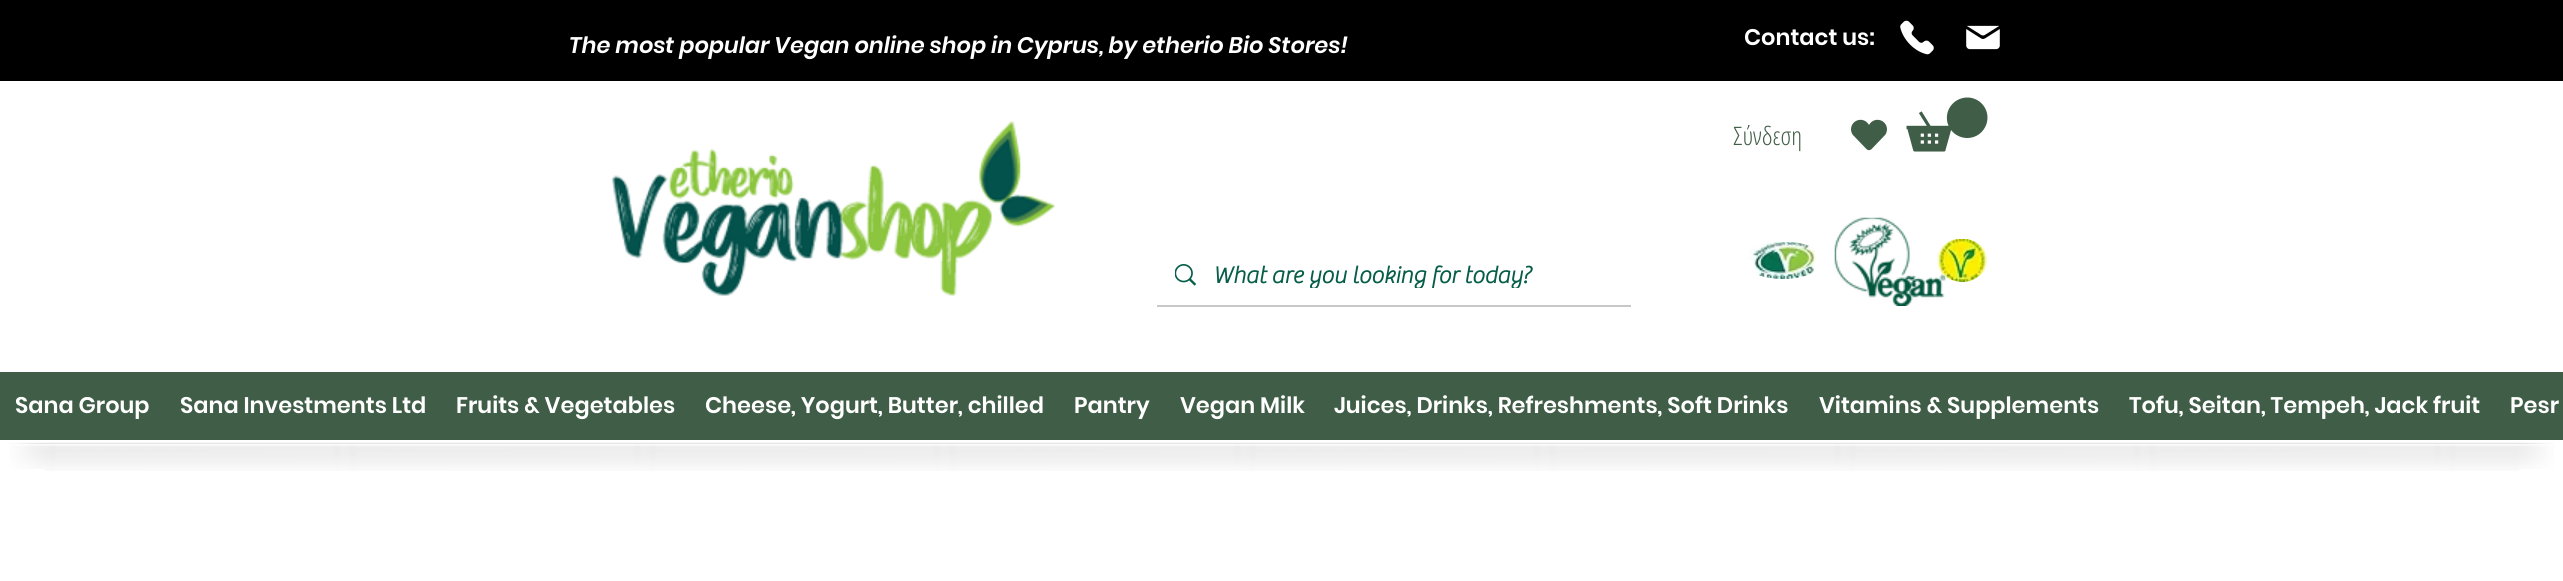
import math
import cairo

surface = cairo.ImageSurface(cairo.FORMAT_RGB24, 2563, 581)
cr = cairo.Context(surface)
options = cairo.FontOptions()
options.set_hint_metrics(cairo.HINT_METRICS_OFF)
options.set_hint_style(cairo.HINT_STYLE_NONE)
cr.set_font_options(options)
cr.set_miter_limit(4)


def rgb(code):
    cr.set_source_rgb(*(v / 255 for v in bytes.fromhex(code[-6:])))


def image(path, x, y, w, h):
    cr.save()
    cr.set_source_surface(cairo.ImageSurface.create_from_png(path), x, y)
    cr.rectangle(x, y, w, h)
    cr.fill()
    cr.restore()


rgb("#ffffff")
cr.paint()
rgb("#000000")
cr.rectangle(0, 0, 2563, 81)
cr.fill()
image("img/1.png", 1900, 20, 34, 35)
image("img/2.png", 1966, 25, 34, 25)
image("img/3.png", 611, 121, 445, 175)
image("img/4.png", 1851, 119, 36, 32)
image("img/5.png", 1906, 97, 82, 55)
rgb("#c8c8c8")
cr.rectangle(1157, 305, 474, 2)
cr.fill()
image("img/6.png", 1175, 264, 21, 22)
image("img/7.png", 1749, 242, 68, 37)
image("img/8.png", 1834, 217, 112, 89)
image("img/9.png", 1937, 239, 50, 43)
rgb("#405e47")
cr.rectangle(0, 372, 2563, 68)
cr.fill()
image("img/10.png", 9, 442, 36, 27)
image("img/11.png", 45, 442, 2474, 29)
image("img/12.png", 2518, 442, 36, 27)
cr.select_font_face("Poppins SemiBold", cairo.FONT_SLANT_ITALIC)
cr.set_font_size(22.5)
rgb("#ffffff")
cr.move_to(569, 53)
cr.show_text("The most popular Vegan online shop in Cyprus, by etherio Bio Stores!")
cr.select_font_face("Poppins SemiBold")
cr.move_to(1744, 45)
cr.show_text("Contact us:")
cr.select_font_face("Open Sans Condensed Light")
cr.set_font_size(25.5)
rgb("#405e47")
cr.move_to(1733, 145)
cr.show_text("Σύνδεση")
cr.save()
cr.rectangle(1214, 261, 354, 27)
cr.clip()
cr.select_font_face("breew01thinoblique", cairo.FONT_SLANT_NORMAL, cairo.FONT_WEIGHT_BOLD)
cr.set_font_size(24)
rgb("#065e48")
cr.move_to(1213, 283)
cr.show_text("What are you looking for today?")
cr.restore()
cr.select_font_face("Poppins SemiBold")
cr.set_font_size(22.5)
rgb("#ffffff")
for x, y, s in [
    (15, 413, "Sana Group"),
    (180, 413, "Sana Investments Ltd"),
    (456, 413, "Fruits & Vegetables"),
    (705, 413, "Cheese, Yogurt, Butter, chilled"),
    (1074, 413, "Pantry"),
    (1180, 413, "Vegan Milk"),
    (1334, 413, "Juices, Drinks, Refreshments, Soft Drinks"),
    (1819, 413, "Vitamins & Supplements"),
    (2129, 413, "Tofu, Seitan, Tempeh, Jack fruit"),
    (2510, 413, "Pesr"),
]:
    cr.move_to(x, y)
    cr.show_text(s)
surface.write_to_png("page.png")
